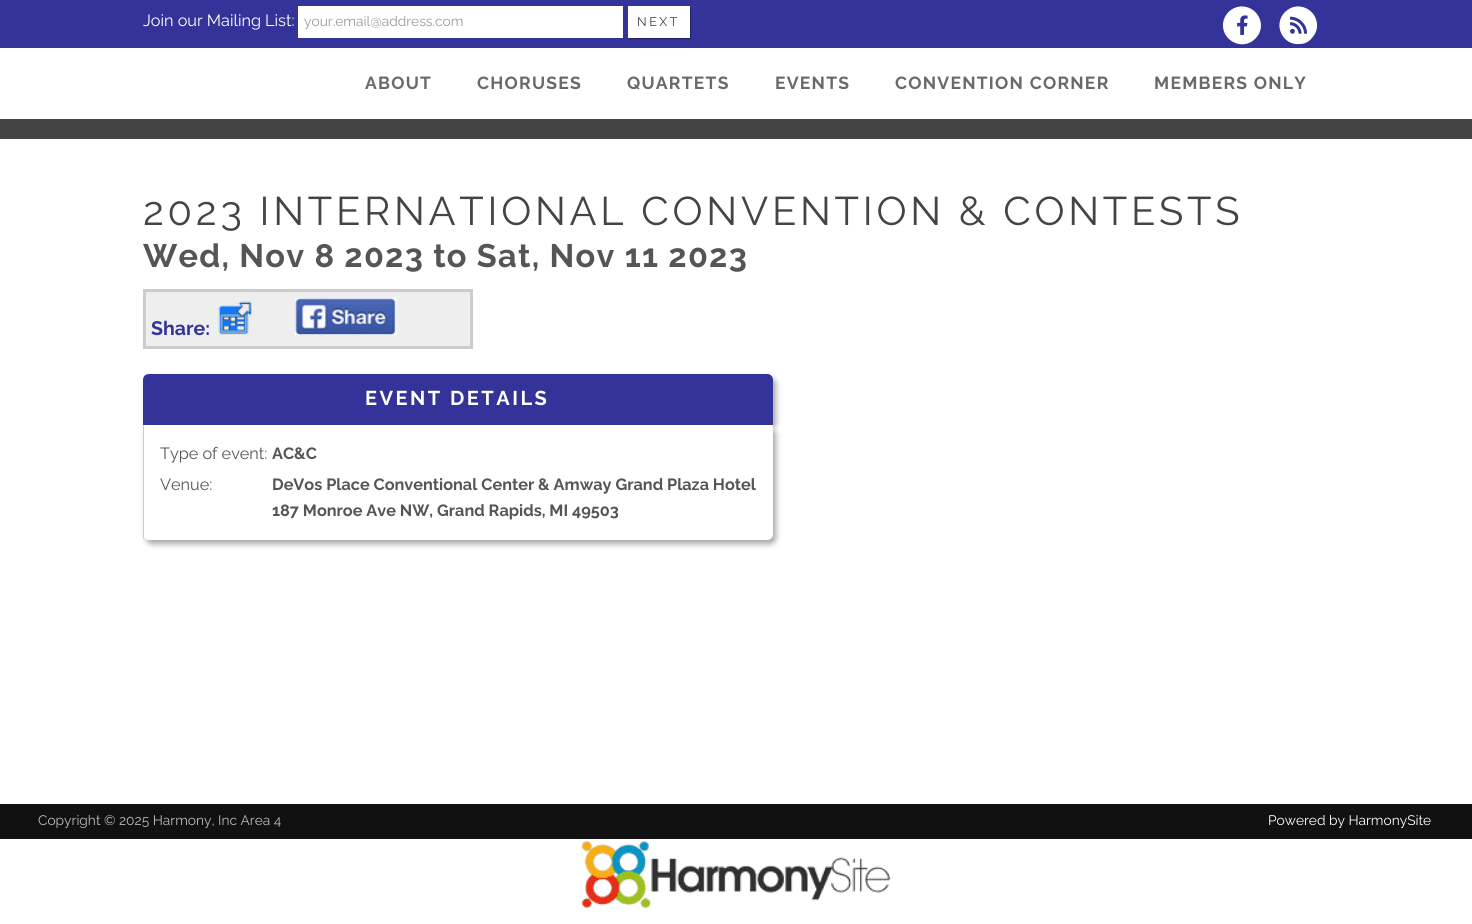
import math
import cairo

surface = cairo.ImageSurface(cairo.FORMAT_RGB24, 1472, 924)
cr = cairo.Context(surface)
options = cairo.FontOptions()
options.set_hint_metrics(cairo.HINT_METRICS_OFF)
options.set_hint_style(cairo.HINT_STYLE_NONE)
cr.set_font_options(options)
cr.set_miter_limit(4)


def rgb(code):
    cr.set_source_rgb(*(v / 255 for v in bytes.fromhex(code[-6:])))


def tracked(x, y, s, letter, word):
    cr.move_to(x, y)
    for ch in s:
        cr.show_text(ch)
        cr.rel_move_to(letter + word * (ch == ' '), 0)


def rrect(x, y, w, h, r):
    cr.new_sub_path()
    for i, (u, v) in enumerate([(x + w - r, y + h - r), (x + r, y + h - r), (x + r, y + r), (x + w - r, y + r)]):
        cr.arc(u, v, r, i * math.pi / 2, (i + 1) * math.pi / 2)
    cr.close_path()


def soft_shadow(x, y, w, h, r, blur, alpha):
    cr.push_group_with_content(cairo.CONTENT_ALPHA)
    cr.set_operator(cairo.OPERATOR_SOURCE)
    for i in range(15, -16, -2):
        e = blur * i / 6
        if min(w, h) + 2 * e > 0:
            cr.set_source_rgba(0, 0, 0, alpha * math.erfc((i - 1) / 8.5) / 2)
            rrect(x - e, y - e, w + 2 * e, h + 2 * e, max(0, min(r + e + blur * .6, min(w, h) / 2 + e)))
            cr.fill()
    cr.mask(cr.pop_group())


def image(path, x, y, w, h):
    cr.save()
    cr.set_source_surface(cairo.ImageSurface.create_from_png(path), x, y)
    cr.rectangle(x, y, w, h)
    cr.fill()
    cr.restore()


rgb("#ffffff")
cr.paint()
rgb("#333399")
cr.rectangle(0, 0, 1472, 48)
cr.fill()
rgb("#ffffff")
cr.rectangle(298, 6, 325, 32)
cr.fill()
rgb("#000000")
soft_shadow(629, 8, 62, 31, 0, 0.5, 0.35)
rgb("#ffffff")
cr.rectangle(628, 6, 62, 32)
cr.fill()
cr.new_path()
cr.move_to(1228.5, 12)
cr.curve_to(1231.5, 9, 1235.5, 7, 1240, 6.5)
cr.curve_to(1257.5, 5, 1268, 26, 1255.5, 38.5)
cr.curve_to(1243, 51.5, 1221.5, 41, 1223, 23.5)
cr.curve_to(1223.5, 19, 1225.5, 15, 1228.5, 12)
cr.close_path()
cr.fill()
image("img/1.png", 1237, 15, 11, 20)
cr.new_path()
cr.move_to(1285, 12)
cr.curve_to(1297.5, -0.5, 1318.5, 9.5, 1317, 27.5)
cr.curve_to(1316.5, 31.5, 1314.5, 35.5, 1311.5, 38.5)
cr.curve_to(1308.5, 42, 1304.5, 44, 1300, 44)
cr.curve_to(1282.5, 46, 1272.5, 24.5, 1285, 12)
cr.close_path()
cr.fill()
image("img/2.png", 1290, 16, 17, 18)
rgb("#444444")
cr.rectangle(0, 119, 1472, 20)
cr.fill()
rgb("#eeeeee")
cr.rectangle(144.5, 290.5, 327, 57)
cr.fill_preserve()
rgb("#cccccc")
cr.set_line_width(3)
cr.stroke()
image("img/3.png", 218, 301, 34, 34)
image("img/4.png", 295, 297, 102, 39)
rgb("#000000")
soft_shadow(146, 378, 630, 51, 6, 3, 0.35)
rgb("#333399")
cr.new_path()
cr.move_to(149, 374)
cr.line_to(767, 374)
cr.curve_to(770.5, 374, 773, 376.5, 773, 380)
cr.line_to(773, 425)
cr.line_to(143, 425)
cr.line_to(143, 380)
cr.curve_to(143, 376.5, 145.5, 374, 149, 374)
cr.close_path()
cr.fill()
rgb("#000000")
soft_shadow(146, 429, 630, 115, 6, 3, 0.35)
rgb("#ffffff")
cr.new_path()
cr.move_to(143, 425)
cr.line_to(773, 425)
cr.line_to(773, 534)
cr.curve_to(773, 537.5, 770.5, 540, 767, 540)
cr.line_to(149, 540)
cr.curve_to(145.5, 540, 143, 537.5, 143, 534)
cr.close_path()
cr.fill()
rgb("#cccccc")
cr.rectangle(143, 425, 1, 113)
cr.fill()
rgb("#111111")
cr.rectangle(0, 804, 1472, 35)
cr.fill()
image("img/5.png", 581, 841, 310, 67)
cr.select_font_face("Raleway")
cr.set_font_size(16.25)
rgb("#ffffff")
cr.move_to(143, 26)
cr.show_text("Join our Mailing List:")
cr.set_font_size(13.75)
rgb("#999999")
cr.move_to(304, 26)
cr.show_text("your.email@address.com")
cr.set_font_size(12.5)
rgb("#444444")
tracked(637, 26, "NEXT", 2.5, 0)
cr.select_font_face("Raleway", cairo.FONT_SLANT_NORMAL, cairo.FONT_WEIGHT_BOLD)
cr.set_font_size(17.5)
rgb("#696969")
for x, y, s in [
    (365, 89, "ABOUT"),
    (477, 89, "CHORUSES"),
    (627, 89, "QUARTETS"),
    (775, 89, "EVENTS"),
    (895, 89, "CONVENTION CORNER"),
    (1154, 89, "MEMBERS ONLY"),
]:
    tracked(x, y, s, 1.25, 0)
cr.select_font_face("Raleway")
cr.set_font_size(40)
rgb("#444444")
tracked(143, 225, "2023 INTERNATIONAL CONVENTION & CONTESTS", 3.75, 0)
cr.select_font_face("Raleway", cairo.FONT_SLANT_NORMAL, cairo.FONT_WEIGHT_BOLD)
cr.set_font_size(32.5)
rgb("#555555")
tracked(143, 267, "Wed, Nov 8 2023 to Sat, Nov 11 2023", 1.25, 0)
cr.set_font_size(19.5)
rgb("#333399")
cr.move_to(151, 335)
cr.show_text("Share:")
cr.set_font_size(20)
rgb("#ffffff")
tracked(365, 405, "EVENT DETAILS", 2.5, 0)
cr.select_font_face("Raleway")
cr.set_font_size(16.25)
rgb("#555555")
cr.move_to(160, 459)
cr.show_text("Type of event:")
cr.select_font_face("Raleway", cairo.FONT_SLANT_NORMAL, cairo.FONT_WEIGHT_BOLD)
cr.move_to(272, 459)
cr.show_text("AC&C")
cr.select_font_face("Raleway")
cr.move_to(160, 490)
cr.show_text("Venue:")
cr.select_font_face("Raleway", cairo.FONT_SLANT_NORMAL, cairo.FONT_WEIGHT_BOLD)
cr.move_to(272, 490)
cr.show_text("DeVos Place Conventional Center & Amway Grand Plaza Hotel")
cr.move_to(272, 516)
cr.show_text("187 Monroe Ave NW, Grand Rapids, MI 49503")
cr.select_font_face("Raleway")
cr.set_font_size(13.75)
rgb("#bbbbbb")
cr.move_to(38, 825)
cr.show_text("Copyright © 2025 Harmony, Inc Area 4")
rgb("#ffffff")
cr.move_to(1268, 825)
cr.show_text("Powered by HarmonySite")
surface.write_to_png("page.png")
